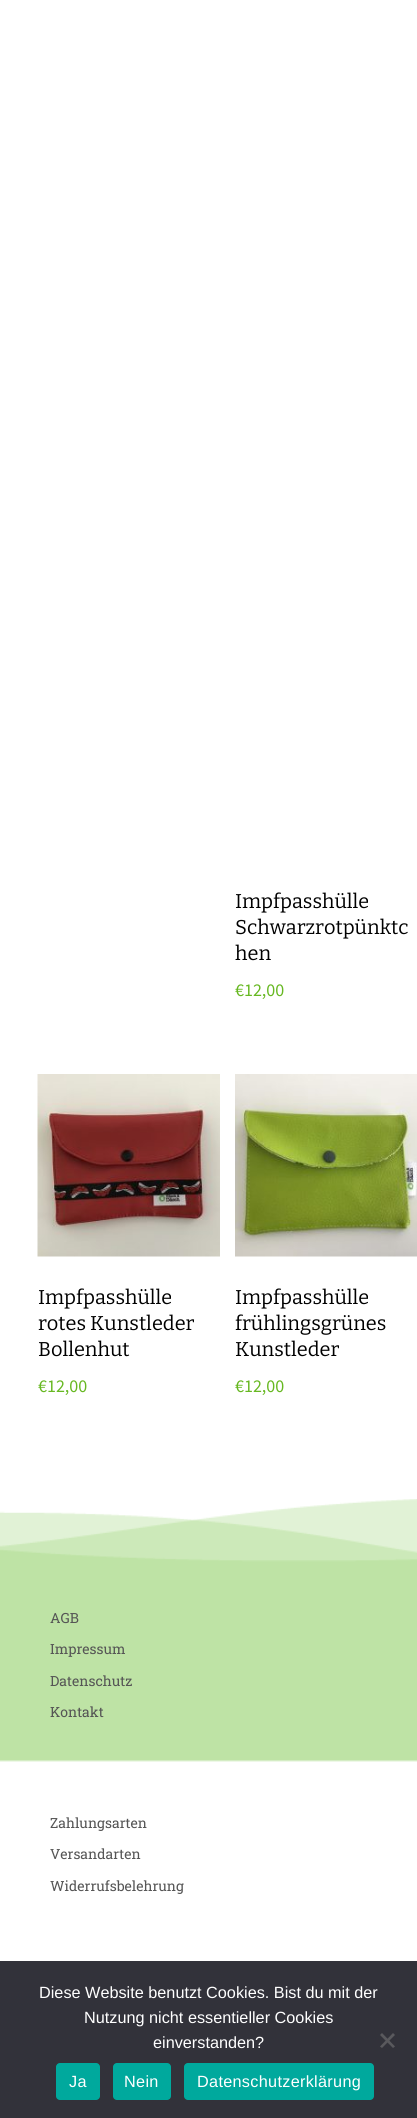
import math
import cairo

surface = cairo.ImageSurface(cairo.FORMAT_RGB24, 417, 2118)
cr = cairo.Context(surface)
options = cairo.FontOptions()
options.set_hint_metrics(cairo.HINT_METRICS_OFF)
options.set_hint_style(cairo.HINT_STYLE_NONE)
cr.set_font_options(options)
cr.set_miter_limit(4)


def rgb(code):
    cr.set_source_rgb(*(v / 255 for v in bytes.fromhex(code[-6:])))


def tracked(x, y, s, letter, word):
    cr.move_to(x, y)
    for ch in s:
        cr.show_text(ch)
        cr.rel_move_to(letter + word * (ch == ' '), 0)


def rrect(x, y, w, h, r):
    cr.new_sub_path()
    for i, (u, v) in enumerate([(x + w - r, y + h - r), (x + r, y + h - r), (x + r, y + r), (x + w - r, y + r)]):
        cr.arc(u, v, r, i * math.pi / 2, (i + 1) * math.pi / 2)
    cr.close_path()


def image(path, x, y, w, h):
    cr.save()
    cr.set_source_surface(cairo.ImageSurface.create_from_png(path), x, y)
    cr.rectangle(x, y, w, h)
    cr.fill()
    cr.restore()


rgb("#ffffff")
cr.paint()
image("img/1.png", 37, 1074, 183, 183)
image("img/2.png", 235, 1074, 182, 183)
image("img/3.png", 0, 1499, 417, 263)
rgb("#32323a")
cr.rectangle(0, 1961, 417, 157)
cr.fill()
rgb("#59595d")
cr.new_path()
cr.move_to(393, 2033)
cr.line_to(395, 2035)
cr.line_to(382, 2048)
cr.line_to(380, 2046.5)
cr.close_path()
cr.fill()
cr.new_path()
cr.move_to(380, 2035)
cr.line_to(382, 2033)
cr.line_to(395, 2046.5)
cr.line_to(393, 2048)
cr.close_path()
cr.fill()
rgb("#00a99d")
rrect(56, 2063, 44, 37, 4)
cr.fill()
rrect(113, 2063, 58, 37, 4)
cr.fill()
rrect(184, 2063, 190, 37, 4)
cr.fill()
cr.select_font_face("Bitter")
cr.set_font_size(20)
rgb("#000000")
for x, y, s in [
    (235, 908, "Impfpasshülle"),
    (235, 934, "Schwarzrotpünktc"),
    (235, 960, "hen"),
]:
    cr.move_to(x, y)
    cr.show_text(s)
cr.select_font_face("Source Sans Pro")
cr.set_font_size(18)
rgb("#67b822")
cr.move_to(235, 996)
cr.show_text("€12,00")
cr.select_font_face("Bitter")
cr.set_font_size(20)
rgb("#000000")
for x, y, s in [
    (38, 1304, "Impfpasshülle"),
    (38, 1330, "rotes Kunstleder"),
    (38, 1356, "Bollenhut"),
]:
    cr.move_to(x, y)
    cr.show_text(s)
cr.select_font_face("Source Sans Pro")
cr.set_font_size(18)
rgb("#67b822")
cr.move_to(38, 1392)
cr.show_text("€12,00")
cr.select_font_face("Bitter")
cr.set_font_size(20)
rgb("#000000")
for x, y, s in [
    (235, 1304, "Impfpasshülle"),
    (235, 1330, "frühlingsgrünes"),
    (235, 1356, "Kunstleder"),
]:
    cr.move_to(x, y)
    cr.show_text(s)
cr.select_font_face("Source Sans Pro")
cr.set_font_size(18)
rgb("#67b822")
cr.move_to(235, 1392)
cr.show_text("€12,00")
cr.select_font_face("Roboto Slab")
cr.set_font_size(14)
rgb("#555555")
for x, y, s in [
    (50, 1623, "AGB"),
    (50, 1654, "Impressum"),
    (50, 1686, "Datenschutz"),
    (50, 1717, "Kontakt"),
    (50, 1828, "Zahlungsarten"),
    (50, 1859, "Versandarten"),
    (50, 1891, "Widerrufsbelehrung"),
]:
    cr.move_to(x, y)
    cr.show_text(s)
cr.select_font_face("Liberation Sans")
cr.set_font_size(16.25)
rgb("#ffffff")
for x, y, s in [
    (39, 1998, "Diese Website benutzt Cookies. Bist du mit der"),
    (84, 2023, "Nutzung nicht essentieller Cookies"),
    (153, 2048, "einverstanden?"),
]:
    cr.move_to(x, y)
    cr.show_text(s)
for x, y, s in [
    (69, 2087, "Ja"),
    (124, 2087, "Nein"),
    (197, 2087, "Datenschutzerklärung"),
]:
    tracked(x, y, s, 0.3, 0)
surface.write_to_png("page.png")
